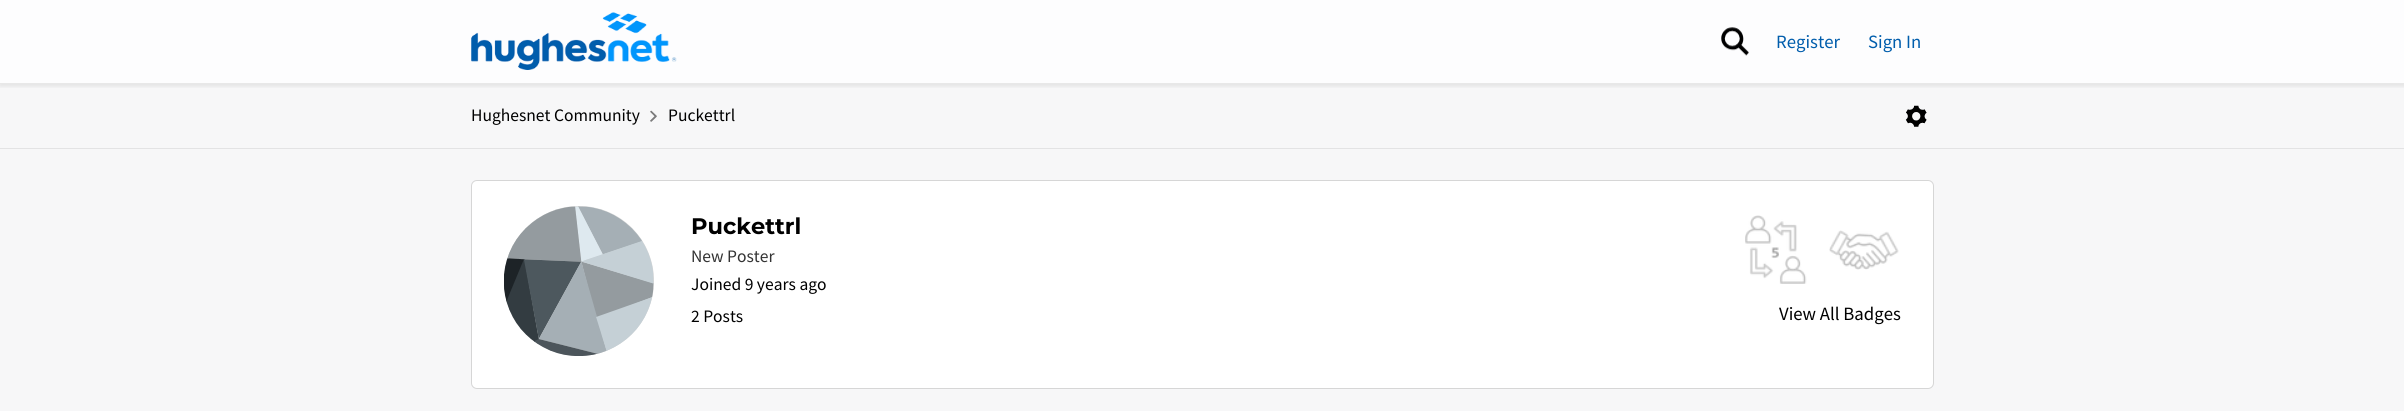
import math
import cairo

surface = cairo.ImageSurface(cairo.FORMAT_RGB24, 2404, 411)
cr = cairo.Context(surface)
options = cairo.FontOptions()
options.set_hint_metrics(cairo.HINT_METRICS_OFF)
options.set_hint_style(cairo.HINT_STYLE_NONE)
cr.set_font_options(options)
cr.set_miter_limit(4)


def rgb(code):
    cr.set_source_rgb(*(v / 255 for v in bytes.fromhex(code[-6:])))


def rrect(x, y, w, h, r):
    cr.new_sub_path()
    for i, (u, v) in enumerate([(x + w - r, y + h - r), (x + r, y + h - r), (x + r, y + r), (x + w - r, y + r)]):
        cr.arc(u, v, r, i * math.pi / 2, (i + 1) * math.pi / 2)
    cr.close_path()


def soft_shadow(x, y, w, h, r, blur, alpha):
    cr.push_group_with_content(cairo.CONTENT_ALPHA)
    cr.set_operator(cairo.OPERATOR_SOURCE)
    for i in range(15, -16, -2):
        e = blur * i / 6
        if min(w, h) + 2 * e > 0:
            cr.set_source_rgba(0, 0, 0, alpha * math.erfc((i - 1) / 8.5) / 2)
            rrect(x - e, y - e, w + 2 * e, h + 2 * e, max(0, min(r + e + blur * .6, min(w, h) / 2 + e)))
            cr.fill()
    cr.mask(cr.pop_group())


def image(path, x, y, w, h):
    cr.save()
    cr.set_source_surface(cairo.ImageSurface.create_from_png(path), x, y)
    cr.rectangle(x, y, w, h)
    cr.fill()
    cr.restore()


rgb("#f7f7f8")
cr.paint()
cr.save()
cr.rectangle(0, 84, 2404, 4)
cr.clip()
rgb("#333333")
soft_shadow(0, 3, 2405, 83, 0, 2.5, 0.12)
cr.restore()
cr.set_source_rgba(1, 1, 1, 0.8)
cr.rectangle(0, 0, 2404, 83)
cr.fill()
rgb("#e8e8e8")
cr.rectangle(0, 83, 2404, 1)
cr.fill()
image("img/1.png", 471, 12, 206, 58)
image("img/2.png", 1721, 27, 28, 29)
rgb("#e3e3e4")
cr.rectangle(0, 148, 2404, 1)
cr.fill()
image("img/3.png", 650, 110, 7, 12)
image("img/4.png", 1905, 105, 22, 22)
rgb("#ffffff")
rrect(471.5, 180.5, 1462, 208, 5.5)
cr.fill_preserve()
rgb("#d6d6d6")
cr.set_line_width(1)
cr.stroke()
rgb("#d9d9d9")
cr.arc(579, 281, 75, 0, 2 * math.pi)
cr.fill()
image("img/5.png", 504, 206, 150, 150)
image("img/6.png", 1745, 215, 62, 69)
image("img/7.png", 1829, 230, 70, 40)
cr.select_font_face("Source Sans Pro")
cr.set_font_size(18.75)
rgb("#005dac")
cr.move_to(1776, 48)
cr.show_text("Register")
cr.move_to(1868, 48)
cr.show_text("Sign In")
cr.set_font_size(17.5)
rgb("#000000")
cr.move_to(471, 121)
cr.show_text("Hughesnet Community")
cr.move_to(668, 121)
cr.show_text("Puckettrl")
cr.select_font_face("Montserrat", cairo.FONT_SLANT_NORMAL, cairo.FONT_WEIGHT_BOLD)
cr.set_font_size(22.5)
cr.move_to(691, 234)
cr.show_text("Puckettrl")
cr.select_font_face("Source Sans Pro")
cr.set_font_size(17.5)
rgb("#333333")
cr.move_to(691, 262)
cr.show_text("New Poster")
rgb("#000000")
cr.move_to(691, 290)
cr.show_text("Joined 9 years ago")
cr.move_to(691, 322)
cr.show_text("2 Posts")
cr.set_font_size(18.75)
cr.move_to(1779, 320)
cr.show_text("View All Badges")
surface.write_to_png("page.png")
